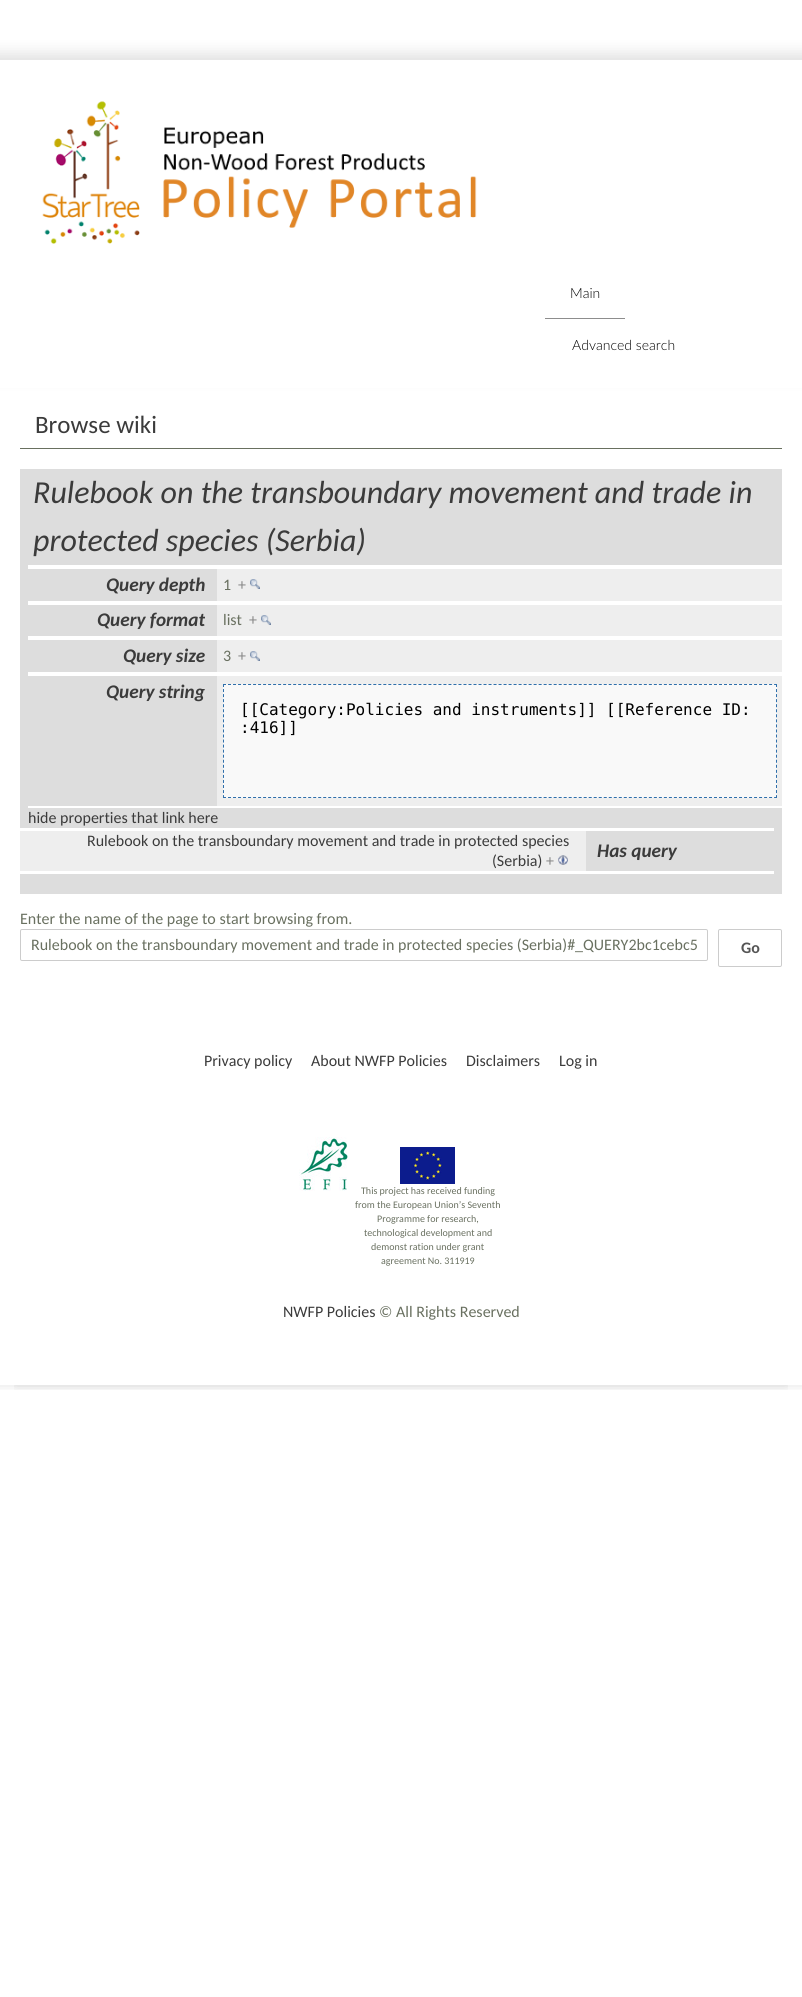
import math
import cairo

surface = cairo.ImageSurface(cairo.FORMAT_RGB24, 802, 1997)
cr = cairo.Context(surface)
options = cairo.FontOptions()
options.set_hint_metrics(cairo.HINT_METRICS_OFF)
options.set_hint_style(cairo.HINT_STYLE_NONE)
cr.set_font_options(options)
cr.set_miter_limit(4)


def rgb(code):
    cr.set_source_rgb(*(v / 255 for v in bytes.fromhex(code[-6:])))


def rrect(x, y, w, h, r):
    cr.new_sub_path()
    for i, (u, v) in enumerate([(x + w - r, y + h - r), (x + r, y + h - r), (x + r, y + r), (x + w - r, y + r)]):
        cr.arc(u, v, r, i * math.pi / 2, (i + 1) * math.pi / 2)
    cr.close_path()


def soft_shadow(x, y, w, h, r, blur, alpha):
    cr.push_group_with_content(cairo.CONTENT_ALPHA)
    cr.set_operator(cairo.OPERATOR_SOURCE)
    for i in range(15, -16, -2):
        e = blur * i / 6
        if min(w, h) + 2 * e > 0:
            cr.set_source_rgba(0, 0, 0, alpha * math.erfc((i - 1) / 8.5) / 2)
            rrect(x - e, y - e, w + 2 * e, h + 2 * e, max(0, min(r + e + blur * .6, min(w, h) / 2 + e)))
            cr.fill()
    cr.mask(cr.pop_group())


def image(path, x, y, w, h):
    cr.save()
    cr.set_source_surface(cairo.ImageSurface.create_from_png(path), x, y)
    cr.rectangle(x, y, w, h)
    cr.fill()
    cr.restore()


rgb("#ffffff")
cr.paint()
rgb("#000000")
soft_shadow(-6, 54, 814, 323, 0, 7.5, 0.13)
rgb("#ffffff")
cr.rectangle(0, 60, 802, 328)
cr.fill()
image("img/1.png", 42, 101, 435, 143)
for x, y, w, h, color in [
    (545, 318, 80, 1, "#8d8d8d"),
    (20, 448, 762, 1, "#697060"),
    (20, 469, 8, 359, "#dddddd"),
    (28, 469, 754, 96, "#dddddd"),
    (217, 569, 565, 32, "#eeeeee"),
    (28, 569, 189, 32, "#dddddd"),
]:
    rgb(color)
    cr.rectangle(x, y, w, h)
    cr.fill()
image("img/2.png", 250, 579, 10, 10)
rgb("#eeeeee")
cr.rectangle(217, 605, 565, 31)
cr.fill()
rgb("#dddddd")
cr.rectangle(28, 605, 189, 31)
cr.fill()
image("img/3.png", 261, 615, 10, 10)
rgb("#eeeeee")
cr.rectangle(217, 640, 565, 32)
cr.fill()
rgb("#dddddd")
cr.rectangle(28, 640, 189, 32)
cr.fill()
image("img/2.png", 250, 651, 10, 10)
for x, y, w, h, color in [
    (217, 676, 565, 130, "#eeeeee"),
    (28, 676, 189, 130, "#dddddd"),
    (223, 684, 554, 114, "#f9f9f9"),
]:
    rgb(color)
    cr.rectangle(x, y, w, h)
    cr.fill()
cr.new_path()
cr.move_to(223, 684.5)
cr.line_to(777, 684.5)
rgb("#2f6fab")
cr.set_line_width(1)
cr.set_dash([3, 2.01])
cr.stroke()
cr.new_path()
cr.move_to(776.5, 684)
cr.line_to(776.5, 798)
cr.set_dash([3, 2.05])
cr.stroke()
cr.new_path()
cr.move_to(223, 797.5)
cr.line_to(777, 797.5)
cr.set_dash([3, 2.01])
cr.stroke()
cr.new_path()
cr.move_to(223.5, 684)
cr.line_to(223.5, 798)
cr.set_dash([3, 2.05])
cr.stroke()
for x, y, w, h, color in [
    (28, 808, 754, 20, "#dddddd"),
    (774, 828, 8, 46, "#dddddd"),
    (20, 831, 566, 40, "#eeeeee"),
]:
    rgb(color)
    cr.rectangle(x, y, w, h)
    cr.fill()
image("img/4.png", 558, 855, 10, 10)
rgb("#dddddd")
cr.rectangle(586, 831, 188, 40)
cr.fill()
cr.rectangle(20, 874, 762, 20)
cr.fill()
rrect(20.5, 929.5, 687, 31, 1.5)
rgb("#cccccc")
cr.set_dash([])
cr.stroke()
rrect(718.5, 929.5, 63, 37, 1.5)
cr.stroke()
cr.save()
cr.rectangle(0, 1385, 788, 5)
cr.clip()
rgb("#000000")
soft_shadow(-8, 1003, 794, 381, 0, 6, 0.13)
cr.restore()
cr.save()
cr.rectangle(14, 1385, 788, 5)
cr.clip()
rgb("#000000")
soft_shadow(16, 1003, 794, 381, 0, 6, 0.13)
cr.restore()
rgb("#ffffff")
cr.rectangle(0, 1376, 802, 9)
cr.fill()
image("img/5.png", 299, 1137, 49, 54)
image("img/6.png", 400, 1147, 55, 37)
cr.select_font_face("Lato Light")
cr.set_font_size(14)
rgb("#000000")
cr.move_to(570, 298)
cr.show_text("Main")
cr.move_to(572, 350)
cr.show_text("Advanced search")
cr.select_font_face("Carlito")
cr.set_font_size(25)
rgb("#3b3b3b")
cr.move_to(35, 433)
cr.show_text("Browse wiki")
cr.select_font_face("Carlito", cairo.FONT_SLANT_ITALIC)
cr.set_font_size(32)
cr.move_to(33, 503)
cr.show_text("Rulebook on the transboundary movement and trade in")
cr.move_to(33, 551)
cr.show_text("protected species (Serbia)")
cr.select_font_face("Carlito", cairo.FONT_SLANT_ITALIC, cairo.FONT_WEIGHT_BOLD)
cr.set_font_size(19.25)
cr.move_to(106, 591)
cr.show_text("Query depth")
cr.select_font_face("Carlito")
cr.set_font_size(16)
rgb("#697060")
cr.move_to(223, 590)
cr.show_text("1")
rgb("#888888")
cr.move_to(238, 590)
cr.show_text("+")
cr.select_font_face("Carlito", cairo.FONT_SLANT_ITALIC, cairo.FONT_WEIGHT_BOLD)
cr.set_font_size(19.25)
rgb("#3b3b3b")
cr.move_to(97, 626)
cr.show_text("Query format")
cr.select_font_face("Carlito")
cr.set_font_size(16)
rgb("#697060")
cr.move_to(223, 625)
cr.show_text("list")
rgb("#888888")
cr.move_to(249, 625)
cr.show_text("+")
cr.select_font_face("Carlito", cairo.FONT_SLANT_ITALIC, cairo.FONT_WEIGHT_BOLD)
cr.set_font_size(19.25)
rgb("#3b3b3b")
cr.move_to(123, 662)
cr.show_text("Query size")
cr.select_font_face("Carlito")
cr.set_font_size(16)
rgb("#697060")
cr.move_to(223, 661)
cr.show_text("3")
rgb("#888888")
cr.move_to(238, 661)
cr.show_text("+")
cr.select_font_face("Carlito", cairo.FONT_SLANT_ITALIC, cairo.FONT_WEIGHT_BOLD)
cr.set_font_size(19.25)
rgb("#3b3b3b")
cr.move_to(106, 698)
cr.show_text("Query string")
cr.select_font_face("DejaVu Sans Mono")
cr.set_font_size(16)
rgb("#000000")
cr.move_to(240, 715)
cr.show_text("[[Category:Policies and instruments]] [[Reference ID:")
cr.move_to(240, 733)
cr.show_text(":416]]")
cr.select_font_face("Carlito")
rgb("#3b3b3b")
for x, y, s in [
    (28, 823, "hide properties that link here"),
    (87, 846, "Rulebook on the transboundary movement and trade in protected species"),
    (492, 866, "(Serbia)"),
]:
    cr.move_to(x, y)
    cr.show_text(s)
rgb("#888888")
cr.move_to(546, 866)
cr.show_text("+")
cr.select_font_face("Carlito", cairo.FONT_SLANT_ITALIC, cairo.FONT_WEIGHT_BOLD)
cr.set_font_size(19.25)
rgb("#3b3b3b")
cr.move_to(597, 857)
cr.show_text("Has query")
cr.select_font_face("Carlito")
cr.set_font_size(16)
rgb("#697060")
cr.move_to(20, 924)
cr.show_text("Enter the name of the page to start browsing from.")
cr.move_to(31, 950)
cr.show_text("Rulebook on the transboundary movement and trade in protected species (Serbia)#_QUERY2bc1cebc5")
cr.select_font_face("Carlito", cairo.FONT_SLANT_NORMAL, cairo.FONT_WEIGHT_BOLD)
rgb("#555555")
cr.move_to(741, 953)
cr.show_text("Go")
cr.select_font_face("Carlito")
rgb("#3b3b3b")
for x, y, s in [
    (204, 1066, "Privacy policy"),
    (311, 1066, "About NWFP Policies"),
    (466, 1066, "Disclaimers"),
    (559, 1066, "Log in"),
]:
    cr.move_to(x, y)
    cr.show_text(s)
cr.set_font_size(10)
rgb("#697060")
for x, y, s in [
    (361, 1194, "This project has received funding"),
    (355, 1208, "from the European Union’s Seventh"),
    (377, 1222, "Programme for research,"),
    (364, 1236, "technological development and"),
    (371, 1250, "demonst ration under grant"),
    (381, 1264, "agreement No. 311919"),
]:
    cr.move_to(x, y)
    cr.show_text(s)
cr.set_font_size(16)
rgb("#3b3b3b")
cr.move_to(283, 1317)
cr.show_text("NWFP Policies")
rgb("#697060")
cr.move_to(379, 1317)
cr.show_text("© All Rights Reserved")
surface.write_to_png("page.png")
